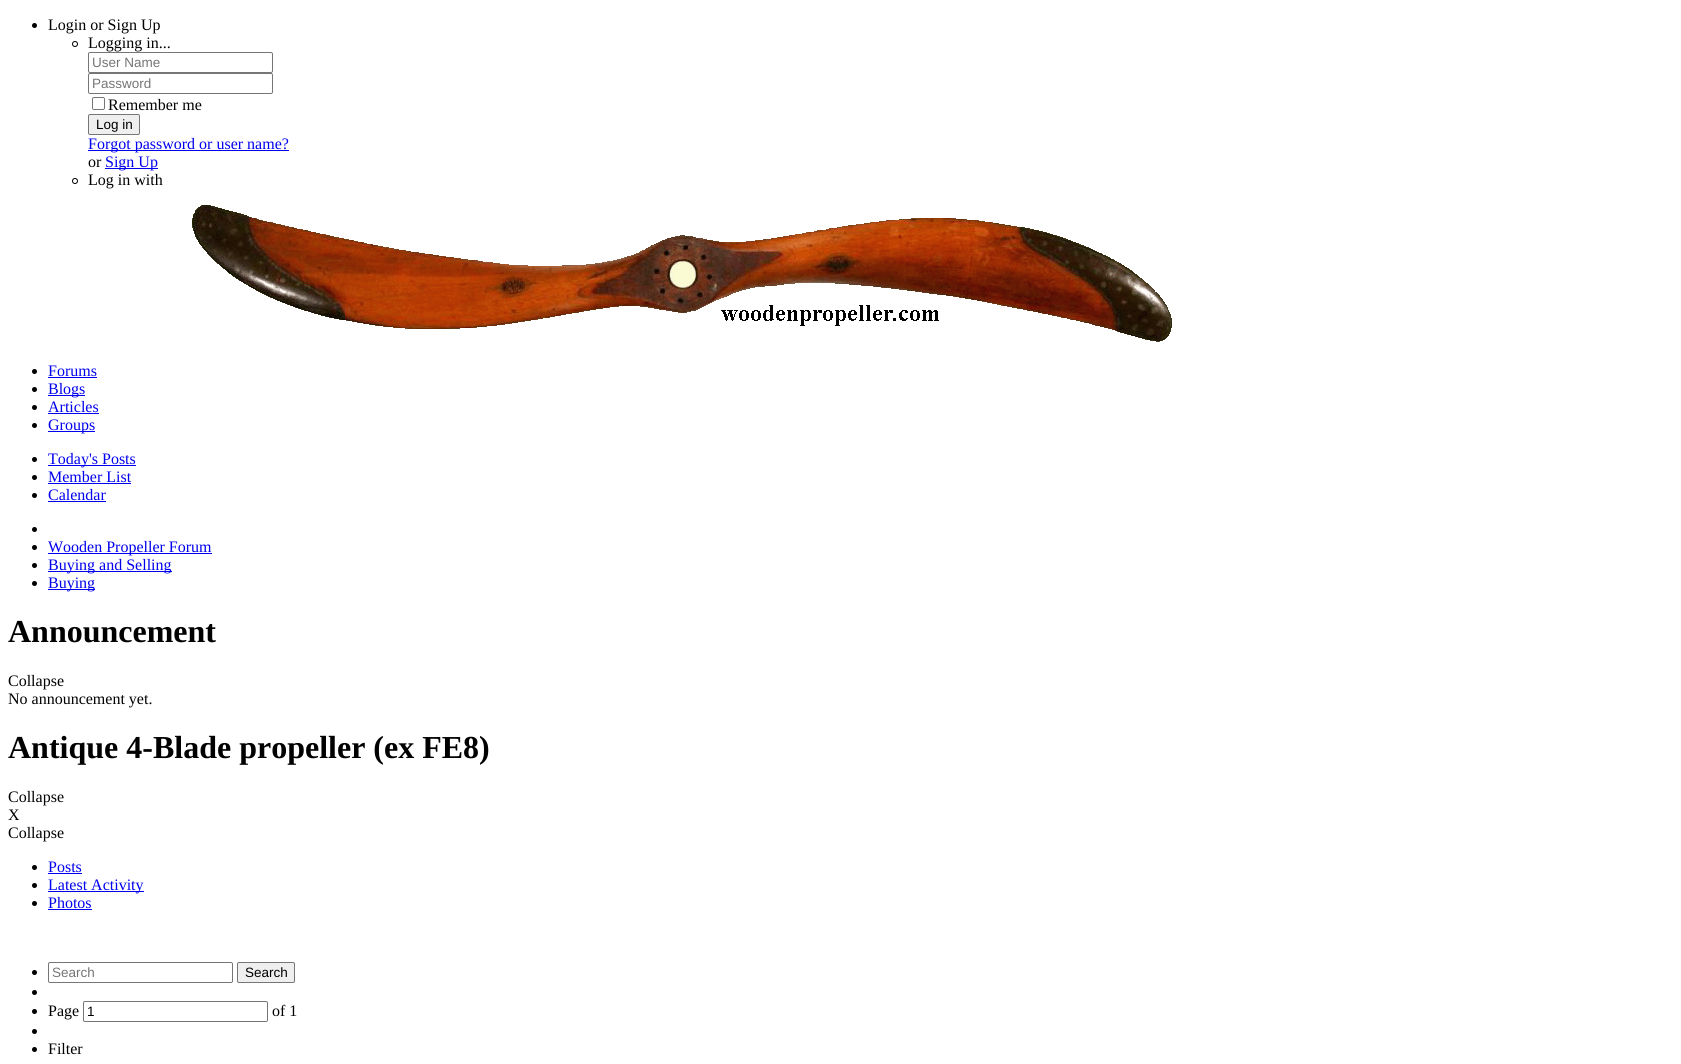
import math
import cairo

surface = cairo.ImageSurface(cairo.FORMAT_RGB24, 1681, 1064)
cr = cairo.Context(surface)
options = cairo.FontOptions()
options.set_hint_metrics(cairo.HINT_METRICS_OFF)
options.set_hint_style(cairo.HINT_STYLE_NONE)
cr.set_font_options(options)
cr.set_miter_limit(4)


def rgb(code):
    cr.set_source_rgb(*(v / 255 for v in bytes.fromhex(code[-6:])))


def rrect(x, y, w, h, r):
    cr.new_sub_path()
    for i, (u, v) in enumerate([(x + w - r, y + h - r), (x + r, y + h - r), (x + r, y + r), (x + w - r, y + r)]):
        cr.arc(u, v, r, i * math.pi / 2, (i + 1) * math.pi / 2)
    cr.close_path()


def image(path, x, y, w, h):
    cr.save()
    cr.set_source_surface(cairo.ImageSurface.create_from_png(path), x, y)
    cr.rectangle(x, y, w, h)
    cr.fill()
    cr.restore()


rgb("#ffffff")
cr.paint()
rgb("#000000")
cr.arc(34.5, 25.5, 2.5, 0, 2 * math.pi)
cr.fill()
cr.arc(75, 44, 2.5, 0, 2 * math.pi)
cr.set_line_width(1)
cr.stroke()
rrect(88.5, 52.5, 184, 20, 1.5)
rgb("#767676")
cr.stroke()
rrect(88.5, 73.5, 184, 20, 1.5)
cr.stroke()
rrect(92.5, 97.5, 12, 12, 1.5)
cr.stroke()
rgb("#efefef")
rrect(88.5, 114.5, 51, 20, 1.5)
cr.fill_preserve()
rgb("#767676")
cr.stroke()
rgb("#0000ee")
cr.rectangle(88, 150, 201, 1)
cr.fill()
cr.rectangle(105, 168, 53, 1)
cr.fill()
cr.arc(75, 181, 2.5, 0, 2 * math.pi)
rgb("#000000")
cr.stroke()
image("img/1.png", 192, 205, 980, 137)
cr.arc(34.5, 371.5, 2.5, 0, 2 * math.pi)
cr.fill()
rgb("#0000ee")
cr.rectangle(48, 377, 49, 1)
cr.fill()
rgb("#000000")
cr.arc(34.5, 389.5, 2.5, 0, 2 * math.pi)
cr.fill()
rgb("#0000ee")
cr.rectangle(48, 395, 37, 1)
cr.fill()
rgb("#000000")
cr.arc(34.5, 407.5, 2.5, 0, 2 * math.pi)
cr.fill()
rgb("#0000ee")
cr.rectangle(48, 413, 51, 1)
cr.fill()
rgb("#000000")
cr.arc(34.5, 425.5, 2.5, 0, 2 * math.pi)
cr.fill()
rgb("#0000ee")
cr.rectangle(48, 431, 47, 1)
cr.fill()
rgb("#000000")
cr.arc(34.5, 459.5, 2.5, 0, 2 * math.pi)
cr.fill()
rgb("#0000ee")
cr.rectangle(48, 465, 88, 1)
cr.fill()
rgb("#000000")
cr.arc(34.5, 477.5, 2.5, 0, 2 * math.pi)
cr.fill()
rgb("#0000ee")
cr.rectangle(48, 483, 83, 1)
cr.fill()
rgb("#000000")
cr.arc(34.5, 495.5, 2.5, 0, 2 * math.pi)
cr.fill()
rgb("#0000ee")
cr.rectangle(48, 501, 58, 1)
cr.fill()
rgb("#000000")
cr.arc(34.5, 529.5, 2.5, 0, 2 * math.pi)
cr.fill()
cr.arc(34.5, 547.5, 2.5, 0, 2 * math.pi)
cr.fill()
rgb("#0000ee")
cr.rectangle(48, 553, 164, 1)
cr.fill()
rgb("#000000")
cr.arc(34.5, 565.5, 2.5, 0, 2 * math.pi)
cr.fill()
rgb("#0000ee")
cr.rectangle(48, 571, 124, 1)
cr.fill()
rgb("#000000")
cr.arc(34.5, 583.5, 2.5, 0, 2 * math.pi)
cr.fill()
rgb("#0000ee")
cr.rectangle(48, 589, 47, 1)
cr.fill()
rgb("#000000")
cr.arc(34.5, 867.5, 2.5, 0, 2 * math.pi)
cr.fill()
rgb("#0000ee")
cr.rectangle(48, 873, 34, 1)
cr.fill()
rgb("#000000")
cr.arc(34.5, 885.5, 2.5, 0, 2 * math.pi)
cr.fill()
rgb("#0000ee")
cr.rectangle(48, 891, 96, 1)
cr.fill()
rgb("#000000")
cr.arc(34.5, 903.5, 2.5, 0, 2 * math.pi)
cr.fill()
rgb("#0000ee")
cr.rectangle(48, 909, 44, 1)
cr.fill()
rgb("#000000")
cr.arc(34.5, 972.5, 2.5, 0, 2 * math.pi)
cr.fill()
rrect(48.5, 962.5, 184, 20, 1.5)
rgb("#767676")
cr.stroke()
rgb("#efefef")
rrect(237.5, 962.5, 57, 20, 1.5)
cr.fill_preserve()
rgb("#767676")
cr.stroke()
rgb("#000000")
cr.arc(34.5, 992.5, 2.5, 0, 2 * math.pi)
cr.fill()
cr.arc(34.5, 1011.5, 2.5, 0, 2 * math.pi)
cr.fill()
rrect(83.5, 1001.5, 184, 20, 1.5)
rgb("#767676")
cr.stroke()
rgb("#000000")
cr.arc(34.5, 1031.5, 2.5, 0, 2 * math.pi)
cr.fill()
cr.arc(34.5, 1049.5, 2.5, 0, 2 * math.pi)
cr.fill()
cr.select_font_face("Liberation Serif")
cr.set_font_size(16)
cr.move_to(48, 30)
cr.show_text("Login or Sign Up")
cr.move_to(88, 48)
cr.show_text("Logging in...")
cr.select_font_face("Liberation Sans")
cr.set_font_size(13.5)
rgb("#757575")
cr.move_to(92, 67)
cr.show_text("User Name")
cr.move_to(92, 88)
cr.show_text("Password")
cr.select_font_face("Liberation Serif")
cr.set_font_size(16)
rgb("#000000")
cr.move_to(108, 110)
cr.show_text("Remember me")
cr.select_font_face("Liberation Sans")
cr.set_font_size(13.5)
cr.move_to(96, 129)
cr.show_text("Log in")
cr.select_font_face("Liberation Serif")
cr.set_font_size(16)
rgb("#0000ee")
cr.move_to(88, 149)
cr.show_text("Forgot password or user name?")
rgb("#000000")
cr.move_to(88, 167)
cr.show_text("or")
rgb("#0000ee")
cr.move_to(105, 167)
cr.show_text("Sign Up")
rgb("#000000")
cr.move_to(88, 185)
cr.show_text("Log in with")
rgb("#0000ee")
for x, y, s in [
    (48, 376, "Forums"),
    (48, 394, "Blogs"),
    (48, 412, "Articles"),
    (48, 430, "Groups"),
    (48, 464, "Today's Posts"),
    (48, 482, "Member List"),
    (48, 500, "Calendar"),
    (48, 552, "Wooden Propeller Forum"),
    (48, 570, "Buying and Selling"),
    (48, 588, "Buying"),
]:
    cr.move_to(x, y)
    cr.show_text(s)
cr.select_font_face("Liberation Serif", cairo.FONT_SLANT_NORMAL, cairo.FONT_WEIGHT_BOLD)
cr.set_font_size(32)
rgb("#000000")
cr.move_to(8, 642)
cr.show_text("Announcement")
cr.select_font_face("Liberation Serif")
cr.set_font_size(16)
cr.move_to(8, 686)
cr.show_text("Collapse")
cr.move_to(8, 704)
cr.show_text("No announcement yet.")
cr.select_font_face("Liberation Serif", cairo.FONT_SLANT_NORMAL, cairo.FONT_WEIGHT_BOLD)
cr.set_font_size(32)
cr.move_to(8, 758)
cr.show_text("Antique 4-Blade propeller (ex FE8)")
cr.select_font_face("Liberation Serif")
cr.set_font_size(16)
for x, y, s in [
    (8, 802, "Collapse"),
    (8, 820, "X"),
    (8, 838, "Collapse"),
]:
    cr.move_to(x, y)
    cr.show_text(s)
rgb("#0000ee")
for x, y, s in [
    (48, 872, "Posts"),
    (48, 890, "Latest Activity"),
    (48, 908, "Photos"),
]:
    cr.move_to(x, y)
    cr.show_text(s)
cr.select_font_face("Liberation Sans")
cr.set_font_size(13.5)
rgb("#757575")
cr.move_to(52, 977)
cr.show_text("Search")
rgb("#000000")
cr.move_to(245, 977)
cr.show_text("Search")
cr.select_font_face("Liberation Serif")
cr.set_font_size(16)
cr.move_to(48, 1016)
cr.show_text("Page")
cr.select_font_face("Liberation Sans")
cr.set_font_size(13.5)
cr.move_to(87, 1016)
cr.show_text("1")
cr.select_font_face("Liberation Serif")
cr.set_font_size(16)
cr.move_to(272, 1016)
cr.show_text("of 1")
cr.move_to(48, 1054)
cr.show_text("Filter")
surface.write_to_png("page.png")
